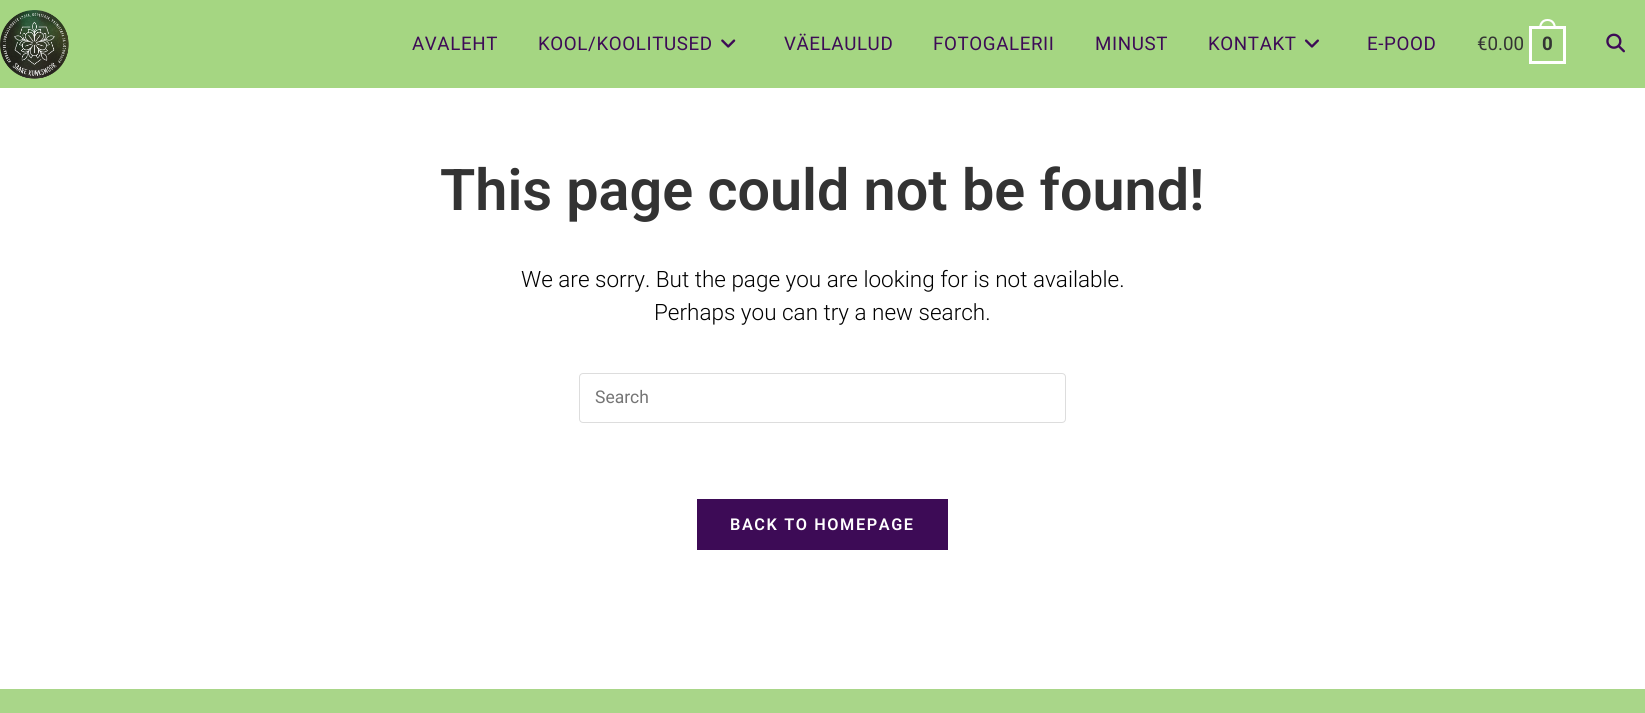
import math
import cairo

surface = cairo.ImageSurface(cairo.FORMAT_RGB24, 1645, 713)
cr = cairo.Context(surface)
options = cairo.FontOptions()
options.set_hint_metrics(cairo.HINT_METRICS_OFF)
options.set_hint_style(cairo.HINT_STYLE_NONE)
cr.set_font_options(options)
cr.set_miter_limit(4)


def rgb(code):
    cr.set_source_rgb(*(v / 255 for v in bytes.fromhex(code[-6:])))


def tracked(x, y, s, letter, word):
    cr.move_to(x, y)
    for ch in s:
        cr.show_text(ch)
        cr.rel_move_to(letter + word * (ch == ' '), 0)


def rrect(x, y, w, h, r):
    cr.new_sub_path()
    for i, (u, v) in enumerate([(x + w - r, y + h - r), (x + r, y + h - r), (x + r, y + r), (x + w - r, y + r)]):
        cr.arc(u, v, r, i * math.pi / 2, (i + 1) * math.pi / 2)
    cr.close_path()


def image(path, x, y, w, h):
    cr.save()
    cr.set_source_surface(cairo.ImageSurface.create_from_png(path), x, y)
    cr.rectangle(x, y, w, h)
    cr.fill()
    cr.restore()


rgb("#ffffff")
cr.paint()
rgb("#a5d682")
cr.rectangle(0, 0, 1645, 88)
cr.fill()
image("img/1.png", 0, 10, 69, 69)
image("img/2.png", 721, 39, 15, 9)
image("img/3.png", 1304, 39, 15, 9)
cr.rectangle(1530.5, 27.5, 34, 35)
rgb("#ffffff")
cr.set_line_width(3)
cr.stroke()
cr.set_fill_rule(cairo.FILL_RULE_EVEN_ODD)
cr.new_path()
cr.move_to(1547.5, 19)
cr.curve_to(1553.5, 19, 1556, 23.5, 1556, 29)
cr.line_to(1539, 29)
cr.curve_to(1539, 23.5, 1541.5, 19, 1547.5, 19)
cr.close_path()
cr.move_to(1547.5, 21)
cr.curve_to(1552, 21, 1554, 25, 1554, 29)
cr.line_to(1541, 29)
cr.curve_to(1541, 25, 1543, 21, 1547.5, 21)
cr.close_path()
cr.fill()
image("img/4.png", 1606, 33, 19, 20)
rrect(579.5, 373.5, 486, 49, 3.5)
rgb("#dddddd")
cr.set_line_width(1)
cr.stroke()
rgb("#3d0b56")
cr.rectangle(697, 499, 251, 51)
cr.fill()
rgb("#a9d689")
cr.rectangle(0, 689, 1645, 24)
cr.fill()
cr.select_font_face("Roboto")
cr.set_font_size(18.75)
rgb("#3d0b56")
for x, y, s in [
    (412, 50, "AVALEHT"),
    (538, 50, "KOOL/KOOLITUSED"),
    (784, 50, "VÄELAULUD"),
    (933, 50, "FOTOGALERII"),
    (1095, 50, "MINUST"),
    (1208, 50, "KONTAKT"),
    (1367, 50, "E-POOD"),
]:
    tracked(x, y, s, 0.6, 0)
rgb("#333333")
cr.move_to(1477, 50)
cr.show_text("€0.00")
cr.select_font_face("Roboto", cairo.FONT_SLANT_NORMAL, cairo.FONT_WEIGHT_BOLD)
cr.move_to(1542, 50)
cr.show_text("0")
cr.select_font_face("Roboto SemiBold")
cr.set_font_size(57.5)
cr.move_to(440, 210)
cr.show_text("This page could not be found!")
cr.select_font_face("Roboto Light")
cr.set_font_size(22.5)
rgb("#000000")
cr.move_to(521, 287)
cr.show_text("We are sorry. But the page you are looking for is not available.")
cr.move_to(654, 320)
cr.show_text("Perhaps you can try a new search.")
cr.select_font_face("Roboto")
cr.set_font_size(17.5)
rgb("#757575")
cr.move_to(595, 403)
cr.show_text("Search")
cr.select_font_face("Roboto SemiBold")
cr.set_font_size(16.25)
rgb("#ffffff")
tracked(730, 530, "BACK TO HOMEPAGE", 1.6, 0)
surface.write_to_png("page.png")
